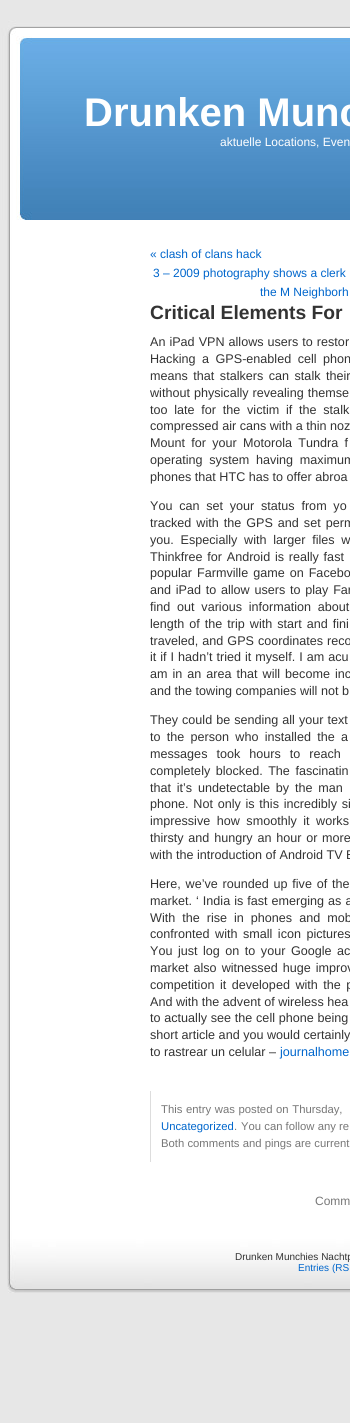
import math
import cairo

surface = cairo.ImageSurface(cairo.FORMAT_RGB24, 350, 1423)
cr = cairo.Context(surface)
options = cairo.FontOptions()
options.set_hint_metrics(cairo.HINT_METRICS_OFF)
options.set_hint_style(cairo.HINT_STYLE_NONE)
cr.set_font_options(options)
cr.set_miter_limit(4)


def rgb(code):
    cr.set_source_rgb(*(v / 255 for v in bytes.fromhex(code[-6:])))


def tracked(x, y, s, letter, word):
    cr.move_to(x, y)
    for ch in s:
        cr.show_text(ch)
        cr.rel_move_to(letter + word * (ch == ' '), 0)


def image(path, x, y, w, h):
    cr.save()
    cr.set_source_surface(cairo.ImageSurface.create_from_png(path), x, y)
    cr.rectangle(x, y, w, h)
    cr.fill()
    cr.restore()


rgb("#e7e7e7")
cr.paint()
image("img/1.png", 7, 220, 343, 1011)
image("img/2.png", 1, 20, 349, 200)
rgb("#dddddd")
cr.rectangle(150, 1091, 1, 71)
cr.fill()
image("img/3.png", 7, 1231, 343, 62)
cr.select_font_face("Liberation Sans", cairo.FONT_SLANT_NORMAL, cairo.FONT_WEIGHT_BOLD)
cr.set_font_size(40)
rgb("#ffffff")
cr.move_to(84, 126)
cr.show_text("Drunken Munc")
cr.select_font_face("Liberation Sans")
cr.set_font_size(12)
cr.move_to(220, 146)
cr.show_text("aktuelle Locations, Even")
rgb("#0066cc")
for x, y, s in [
    (150, 258, "« clash of clans hack"),
    (153, 277, "3 – 2009 photography shows a clerk"),
    (260, 296, "the M Neighborh"),
]:
    cr.move_to(x, y)
    cr.show_text(s)
cr.select_font_face("Liberation Sans", cairo.FONT_SLANT_NORMAL, cairo.FONT_WEIGHT_BOLD)
cr.set_font_size(19.25)
rgb("#333333")
cr.move_to(150, 319)
cr.show_text("Critical Elements For")
cr.select_font_face("Liberation Sans")
cr.set_font_size(12.6)
tracked(150, 346, "An iPad VPN allows users to restor", 0, 0.5)
tracked(150, 363, "Hacking a GPS-enabled cell phon", 0, 3)
tracked(150, 380, "means that stalkers can stalk their", 0, 2)
tracked(150, 397, "without physically revealing themse", 0, 0.5)
tracked(150, 414, "too late for the victim if the stalk", 0, 3.25)
cr.move_to(150, 430)
cr.show_text("compressed air cans with a thin noz")
tracked(150, 447, "Mount for your Motorola Tundra f", 0, 2.75)
tracked(150, 464, "operating system having maximum", 0, 3.25)
cr.move_to(150, 481)
cr.show_text("phones that HTC has to offer abroa")
tracked(150, 510, "You can set your status from yo", 0, 3.25)
tracked(150, 527, "tracked with the GPS and set perm", 0, 1.5)
tracked(150, 544, "you. Especially with larger files w", 0, 3.25)
tracked(150, 561, "Thinkfree for Android is really fast", 0, 1.25)
tracked(150, 577, "popular Farmville game on Facebo", 0, 1.5)
tracked(150, 594, "and iPad to allow users to play Far", 0, 1.25)
tracked(150, 611, "find out various information about", 0, 3.25)
tracked(150, 628, "length of the trip with start and fini", 0, 1.5)
tracked(150, 645, "traveled, and GPS coordinates reco", 0, 0.5)
tracked(150, 661, "it if I hadn’t tried it myself. I am acu", 0, 0.5)
tracked(150, 678, "am in an area that will become inc", 0, 1.5)
cr.move_to(150, 695)
cr.show_text("and the towing companies will not b")
tracked(150, 724, "They could be sending all your text", 0, 0.5)
tracked(150, 741, "to the person who installed the a", 0, 2.75)
tracked(150, 758, "messages took hours to reach", 0, 5.5)
tracked(150, 775, "completely blocked. The fascinatin", 0, 2)
tracked(150, 792, "that it’s undetectable by the man", 0, 2.25)
tracked(150, 808, "phone. Not only is this incredibly si", 0, 1.25)
tracked(150, 825, "impressive how smoothly it works", 0, 3)
tracked(150, 842, "thirsty and hungry an hour or more", 0, 1.25)
cr.move_to(150, 859)
cr.show_text("with the introduction of Android TV B")
tracked(150, 888, "Here, we’ve rounded up five of the", 0, 1.25)
tracked(150, 905, "market. ‘ India is fast emerging as a", 0, 0.5)
tracked(150, 922, "With the rise in phones and mob", 0, 3.5)
tracked(150, 938, "confronted with small icon pictures", 0, 2)
tracked(150, 955, "You just log on to your Google ac", 0, 2)
tracked(150, 972, "market also witnessed huge improv", 0, 1.5)
tracked(150, 989, "competition it developed with the p", 0, 2)
cr.move_to(150, 1006)
cr.show_text("And with the advent of wireless hea")
tracked(150, 1022, "to actually see the cell phone being", 0, 0.25)
cr.move_to(150, 1039)
cr.show_text("short article and you would certainly")
cr.move_to(150, 1056)
cr.show_text("to rastrear un celular –")
rgb("#0066cc")
cr.move_to(280, 1056)
cr.show_text("journalhome")
cr.set_font_size(11.3)
rgb("#777777")
tracked(161, 1113, "This entry was posted on Thursday,", 0, 0.5)
rgb("#0066cc")
cr.move_to(161, 1130)
cr.show_text("Uncategorized")
rgb("#777777")
for x, y, s in [
    (234, 1130, "."),
    (241, 1130, "You can follow any re"),
    (161, 1147, "Both comments and pings are current"),
]:
    cr.move_to(x, y)
    cr.show_text(s)
cr.set_font_size(12)
cr.move_to(315, 1205)
cr.show_text("Comm")
cr.set_font_size(10)
rgb("#333333")
cr.move_to(235, 1260)
cr.show_text("Drunken Munchies Nachtp")
rgb("#0066cc")
cr.move_to(298, 1271)
cr.show_text("Entries (RS")
surface.write_to_png("page.png")
